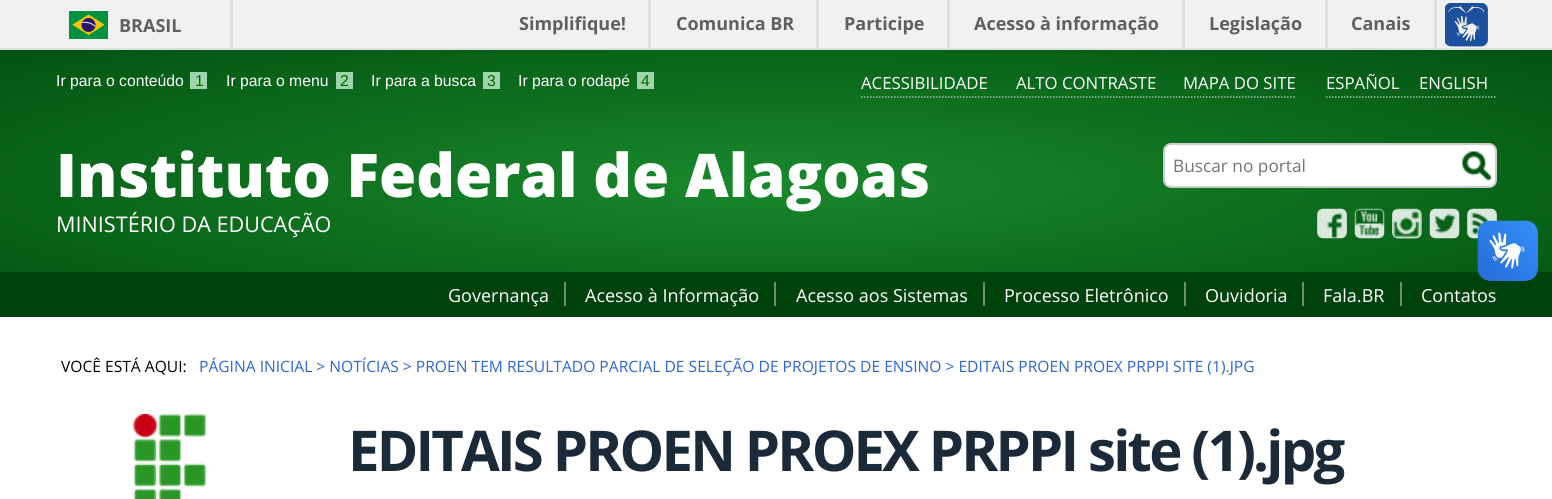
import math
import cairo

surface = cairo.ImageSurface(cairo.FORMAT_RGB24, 1552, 499)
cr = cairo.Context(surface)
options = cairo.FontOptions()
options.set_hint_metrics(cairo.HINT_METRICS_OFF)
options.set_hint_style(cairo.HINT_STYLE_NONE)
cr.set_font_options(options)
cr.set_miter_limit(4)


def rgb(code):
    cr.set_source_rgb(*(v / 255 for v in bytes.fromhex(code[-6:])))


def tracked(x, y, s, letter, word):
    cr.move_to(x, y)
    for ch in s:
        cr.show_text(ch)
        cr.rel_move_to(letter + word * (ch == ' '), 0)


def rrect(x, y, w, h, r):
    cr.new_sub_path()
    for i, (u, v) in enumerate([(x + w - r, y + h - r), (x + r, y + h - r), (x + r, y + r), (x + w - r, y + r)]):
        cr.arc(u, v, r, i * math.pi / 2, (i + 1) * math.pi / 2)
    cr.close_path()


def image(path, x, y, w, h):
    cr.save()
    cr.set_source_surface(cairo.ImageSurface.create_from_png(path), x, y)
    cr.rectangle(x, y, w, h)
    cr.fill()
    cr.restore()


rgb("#ffffff")
cr.paint()
for x, y, w, h, color in [
    (0, 0, 1552, 48, "#f1f1f1"),
    (0, 48, 1552, 2, "#dfdfdf"),
    (230, 0, 3, 48, "#dfdfdf"),
]:
    rgb(color)
    cr.rectangle(x, y, w, h)
    cr.fill()
image("img/1.png", 69, 11, 39, 28)
for x, y, w, h, color in [
    (648, 0, 3, 48, "#dfdfdf"),
    (816, 0, 3, 48, "#dfdfdf"),
    (947, 0, 3, 48, "#dfdfdf"),
    (1182, 0, 3, 48, "#dfdfdf"),
    (1325, 0, 3, 48, "#dfdfdf"),
    (1434, 0, 3, 48, "#dfdfdf"),
]:
    rgb(color)
    cr.rectangle(x, y, w, h)
    cr.fill()
image("img/2.png", 1445, 3, 43, 44)
gradient = cairo.RadialGradient(0, 0, 0, 0, 0, 1)
gradient.set_matrix(cairo.Matrix(1 / 1098, 0, 0, 1 / 189, -1 * 776 / 1098, -1 * 183 / 189))
gradient.add_color_stop_rgba(0.01, 0.098, 0.533, 0.173, 1)
gradient.add_color_stop_rgba(1, 0.008, 0.325, 0.063, 1)
cr.set_source(gradient)
cr.rectangle(0, 50, 1552, 222)
cr.fill()
for x, y, w, h, color in [
    (190, 72, 17, 17, "#9ed5ab"),
    (336, 72, 17, 17, "#9ed5ab"),
    (483, 72, 17, 17, "#9ed5ab"),
    (637, 72, 17, 17, "#9ed5ab"),
]:
    rgb(color)
    cr.rectangle(x, y, w, h)
    cr.fill()
cr.new_path()
cr.move_to(861, 97)
cr.line_to(1296, 97)
rgb("#9bc2a3")
cr.set_line_width(1.5)
cr.set_dash([1.5, 1.5])
cr.stroke()
cr.new_path()
cr.move_to(1326, 97)
cr.line_to(1497, 97)
cr.stroke()
rgb("#ffffff")
rrect(1164, 144, 332, 43, 7)
cr.fill_preserve()
rgb("#cccccc")
cr.set_line_width(2)
cr.set_dash([])
cr.stroke()
image("img/3.png", 1462, 151, 30, 30)
image("img/4.png", 1317, 208, 30, 31)
image("img/5.png", 1354, 208, 31, 31)
image("img/6.png", 1392, 208, 30, 31)
image("img/7.png", 1429, 208, 31, 31)
image("img/8.png", 1467, 208, 30, 31)
for x, y, w, h, color in [
    (0, 272, 1552, 45, "#00420c"),
    (564, 282, 2, 24, "#6c9072"),
    (774, 282, 2, 24, "#6c9072"),
    (983, 282, 2, 24, "#6c9072"),
    (1184, 282, 2, 24, "#6c9072"),
    (1302, 282, 2, 24, "#6c9072"),
    (1400, 282, 2, 24, "#6c9072"),
]:
    rgb(color)
    cr.rectangle(x, y, w, h)
    cr.fill()
image("img/9.png", 132, 414, 75, 85)
image("img/10.png", 1477, 220, 61, 61)
image("img/11.png", 1478, 221, 60, 60)
cr.select_font_face("Open Sans", cairo.FONT_SLANT_NORMAL, cairo.FONT_WEIGHT_BOLD)
cr.set_font_size(18)
rgb("#606060")
for x, y, s in [
    (119, 32, "BRASIL"),
    (519, 30, "Simplifique!"),
    (676, 30, "Comunica BR"),
    (844, 30, "Participe"),
    (974, 30, "Acesso à informação"),
    (1209, 30, "Legislação"),
    (1351, 30, "Canais"),
]:
    cr.move_to(x, y)
    cr.show_text(s)
cr.select_font_face("Liberation Sans")
cr.set_font_size(15.75)
rgb("#ffffff")
cr.move_to(56, 86)
cr.show_text("Ir para o conteúdo")
rgb("#006600")
cr.move_to(195, 86)
cr.show_text("1")
rgb("#ffffff")
cr.move_to(226, 86)
cr.show_text("Ir para o menu")
rgb("#006600")
cr.move_to(340, 86)
cr.show_text("2")
rgb("#ffffff")
cr.move_to(371, 86)
cr.show_text("Ir para a busca")
rgb("#006600")
cr.move_to(487, 86)
cr.show_text("3")
rgb("#ffffff")
cr.move_to(518, 86)
cr.show_text("Ir para o rodapé")
rgb("#006600")
cr.move_to(641, 86)
cr.show_text("4")
cr.select_font_face("Open Sans")
cr.set_font_size(16.75)
rgb("#ffffff")
for x, y, s in [
    (861, 89, "ACESSIBILIDADE"),
    (1016, 89, "ALTO CONTRASTE"),
    (1183, 89, "MAPA DO SITE"),
    (1326, 89, "ESPAÑOL"),
    (1419, 89, "ENGLISH"),
]:
    cr.move_to(x, y)
    cr.show_text(s)
cr.select_font_face("Open Sans ExtraBold")
cr.set_font_size(60.25)
cr.move_to(56, 197)
cr.show_text("Instituto Federal de Alagoas")
cr.select_font_face("Open Sans")
cr.set_font_size(21.6)
cr.move_to(56, 232)
cr.show_text("MINISTÉRIO DA EDUCAÇÃO")
cr.set_font_size(17.25)
rgb("#757575")
cr.move_to(1173, 172)
cr.show_text("Buscar no portal")
cr.set_font_size(18)
rgb("#ffffff")
for x, y, s in [
    (448, 302, "Governança"),
    (585, 302, "Acesso à Informação"),
    (796, 302, "Acesso aos Sistemas"),
    (1004, 302, "Processo Eletrônico"),
    (1205, 302, "Ouvidoria"),
    (1323, 302, "Fala.BR"),
    (1421, 302, "Contatos"),
]:
    cr.move_to(x, y)
    cr.show_text(s)
cr.set_font_size(15.6)
rgb("#000000")
cr.move_to(61, 372)
cr.show_text("VOCÊ ESTÁ AQUI:")
rgb("#2c66ce")
cr.move_to(199, 372)
cr.show_text("PÁGINA INICIAL > NOTÍCIAS > PROEN TEM RESULTADO PARCIAL DE SELEÇÃO DE PROJETOS DE ENSINO > EDITAIS PROEN PROEX PRPPI SITE (1).JPG")
cr.select_font_face("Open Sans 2", cairo.FONT_SLANT_NORMAL, cairo.FONT_WEIGHT_BOLD)
cr.set_font_size(56.2)
rgb("#1a2a39")
tracked(348, 471, "EDITAIS PROEN PROEX PRPPI site (1).jpg", -2.8, 0)
surface.write_to_png("page.png")
